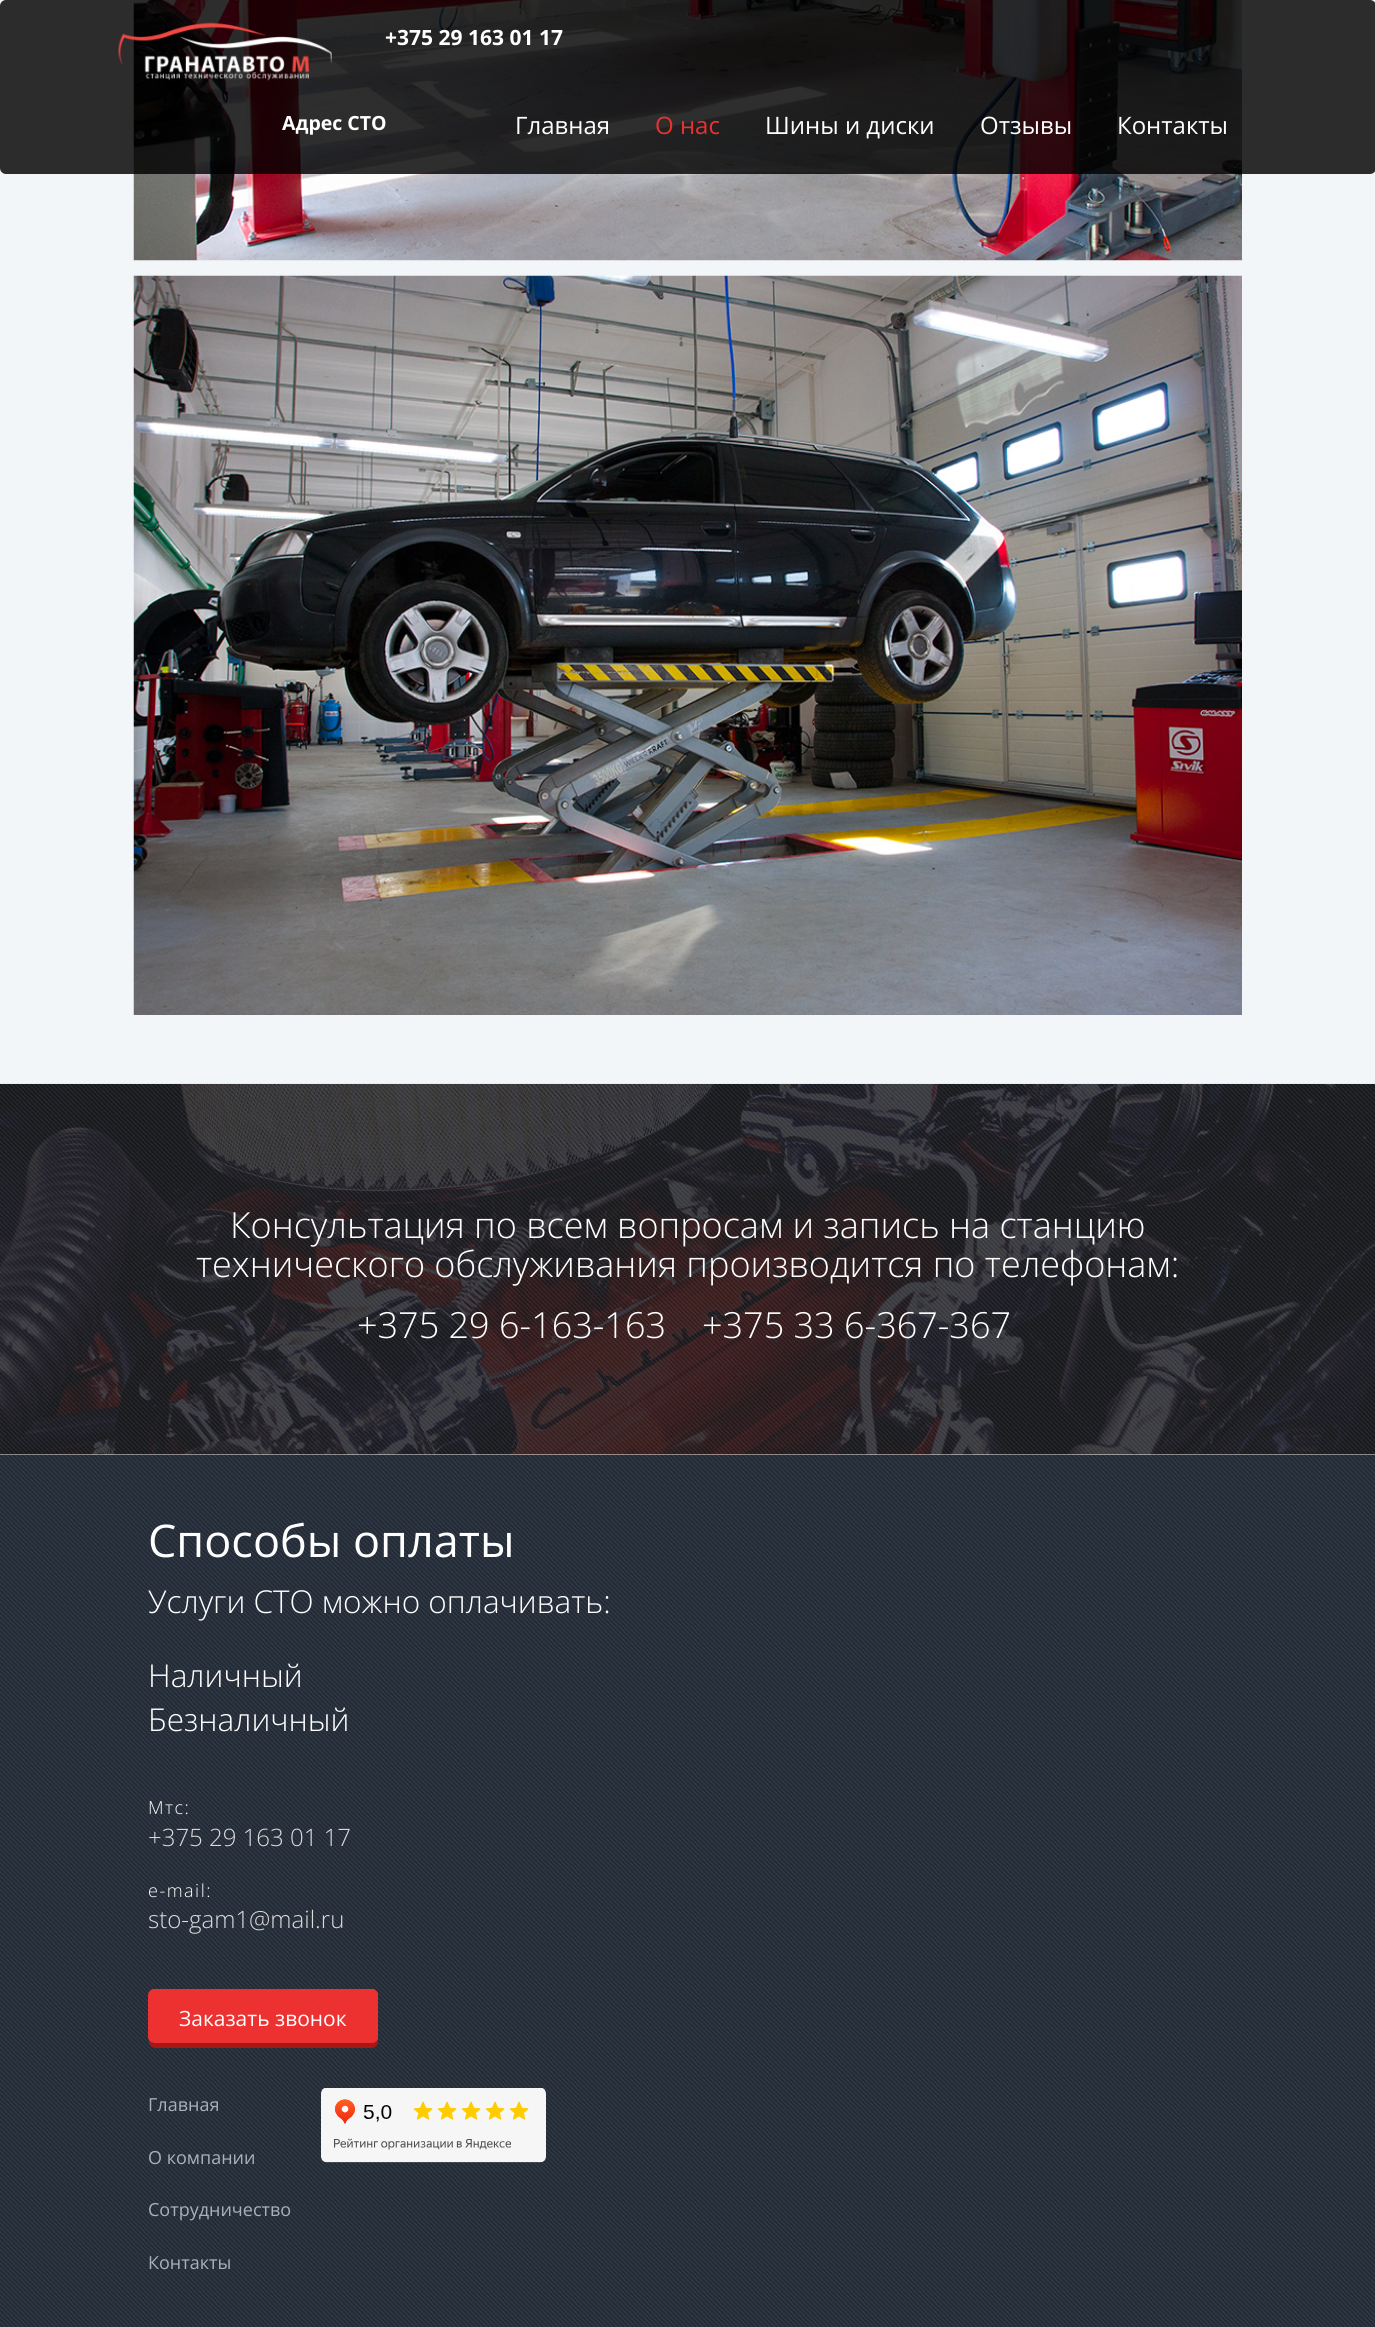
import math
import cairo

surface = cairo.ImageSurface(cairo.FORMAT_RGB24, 1375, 2327)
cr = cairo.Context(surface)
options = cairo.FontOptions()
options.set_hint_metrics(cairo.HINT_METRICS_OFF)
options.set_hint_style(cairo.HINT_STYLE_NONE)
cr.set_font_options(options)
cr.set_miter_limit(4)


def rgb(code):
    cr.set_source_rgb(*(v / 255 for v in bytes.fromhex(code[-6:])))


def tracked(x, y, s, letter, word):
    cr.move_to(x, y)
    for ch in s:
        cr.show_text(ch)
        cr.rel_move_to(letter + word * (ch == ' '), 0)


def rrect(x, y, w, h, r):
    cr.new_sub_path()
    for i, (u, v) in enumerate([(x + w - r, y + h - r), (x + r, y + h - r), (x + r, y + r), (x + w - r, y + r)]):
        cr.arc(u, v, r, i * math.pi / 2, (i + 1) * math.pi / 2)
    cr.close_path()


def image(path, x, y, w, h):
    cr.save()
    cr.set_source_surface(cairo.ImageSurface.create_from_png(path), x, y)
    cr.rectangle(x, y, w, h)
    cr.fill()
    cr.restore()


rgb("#ffffff")
cr.paint()
rgb("#f3f6f9")
cr.rectangle(0, 0, 1375, 1083)
cr.fill()
rgb("#ececec")
cr.rectangle(0, 1083, 1375, 1)
cr.fill()
image("img/1.png", 133, 0, 1109, 261)
image("img/2.png", 133, 275, 1109, 740)
cr.set_source_rgba(0, 0, 0, 0.82)
rrect(0, 0, 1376, 174, 6)
cr.fill()
image("img/3.png", 118, 22, 214, 59)
image("img/4.png", 0, 1084, 1375, 371)
image("img/5.png", 0, 1084, 1375, 370)
rgb("#1f2734")
cr.rectangle(0, 1455, 1375, 872)
cr.fill()
image("img/6.png", 0, 1455, 1375, 872)
rgb("#a91616")
cr.new_path()
cr.move_to(149, 2039)
cr.line_to(149, 2042)
cr.curve_to(149, 2045, 152, 2048, 155, 2048)
cr.line_to(372, 2048)
cr.curve_to(375, 2048, 378, 2045, 378, 2042)
cr.line_to(378, 2037)
cr.curve_to(378, 2040, 375, 2043, 372, 2043)
cr.line_to(154, 2043)
cr.curve_to(152, 2043, 150, 2042, 149, 2039)
cr.close_path()
cr.fill()
rgb("#ed3030")
rrect(149, 1989, 229, 54, 6)
cr.fill()
cr.set_fill_rule(cairo.FILL_RULE_EVEN_ODD)
cr.new_path()
cr.move_to(154, 1989)
cr.line_to(372, 1989)
cr.curve_to(375, 1989, 378, 1992, 378, 1995)
cr.line_to(378, 2037)
cr.curve_to(378, 2040, 375, 2043, 372, 2043)
cr.line_to(154, 2043)
cr.curve_to(151, 2043, 148, 2040, 148, 2037)
cr.line_to(148, 1995)
cr.curve_to(148, 1992, 151, 1989, 154, 1989)
cr.close_path()
cr.move_to(154, 1990)
cr.line_to(372, 1990)
cr.curve_to(374, 1990, 376, 1993, 376, 1995)
cr.line_to(376, 2037)
cr.curve_to(376, 2040, 374, 2043, 372, 2043)
cr.line_to(154, 2043)
cr.curve_to(152, 2043, 150, 2040, 150, 2037)
cr.line_to(150, 1995)
cr.curve_to(150, 1993, 152, 1990, 154, 1990)
cr.close_path()
cr.fill()
image("img/7.png", 321, 2088, 225, 75)
cr.select_font_face("Open Sans", cairo.FONT_SLANT_NORMAL, cairo.FONT_WEIGHT_BOLD)
cr.set_font_size(21)
rgb("#ffffff")
cr.move_to(385, 45)
cr.show_text("+375 29 163 01 17")
cr.set_font_size(19.5)
cr.move_to(282, 130)
cr.show_text("Адрес СТО")
cr.select_font_face("Open Sans")
cr.set_font_size(24)
cr.move_to(515, 134)
cr.show_text("Главная")
rgb("#ed3030")
cr.move_to(655, 134)
cr.show_text("О нас")
rgb("#ffffff")
for x, y, s in [
    (765, 134, "Шины и диски"),
    (980, 134, "Отзывы"),
    (1117, 134, "Контакты"),
]:
    cr.move_to(x, y)
    cr.show_text(s)
cr.select_font_face("Open Sans Light")
cr.set_font_size(36)
for x, y, s in [
    (230, 1238, "Консультация по всем вопросам и запись на станцию"),
    (196, 1277, "технического обслуживания производится по телефонам:"),
    (357, 1338, "+375 29 6-163-163"),
    (702, 1338, "+375 33 6-367-367"),
]:
    cr.move_to(x, y)
    cr.show_text(s)
cr.select_font_face("Open Sans")
cr.set_font_size(45)
cr.move_to(148, 1557)
cr.show_text("Способы оплаты")
cr.select_font_face("Open Sans Light")
cr.set_font_size(31.5)
for x, y, s in [
    (148, 1613, "Услуги СТО можно оплачивать:"),
    (148, 1687, "Наличный"),
    (148, 1731, "Безналичный"),
]:
    cr.move_to(x, y)
    cr.show_text(s)
cr.set_font_size(18)
tracked(148, 1814, "Мтс:", 1.5, 0)
cr.set_font_size(24)
rgb("#dcdcdc")
cr.move_to(148, 1846)
cr.show_text("+375 29 163 01 17")
cr.set_font_size(18)
rgb("#ffffff")
tracked(148, 1897, "e-mail:", 1.5, 0)
cr.set_font_size(24)
rgb("#dcdcdc")
cr.move_to(148, 1928)
cr.show_text("sto-gam1@mail.ru")
cr.select_font_face("Open Sans")
cr.set_font_size(21)
rgb("#ffffff")
cr.move_to(179, 2026)
cr.show_text("Заказать звонок")
cr.set_font_size(18)
rgb("#a9b1bd")
for x, y, s in [
    (148, 2111, "Главная"),
    (148, 2164, "О компании"),
    (148, 2216, "Сотрудничество"),
    (148, 2269, "Контакты"),
]:
    cr.move_to(x, y)
    cr.show_text(s)
surface.write_to_png("page.png")
